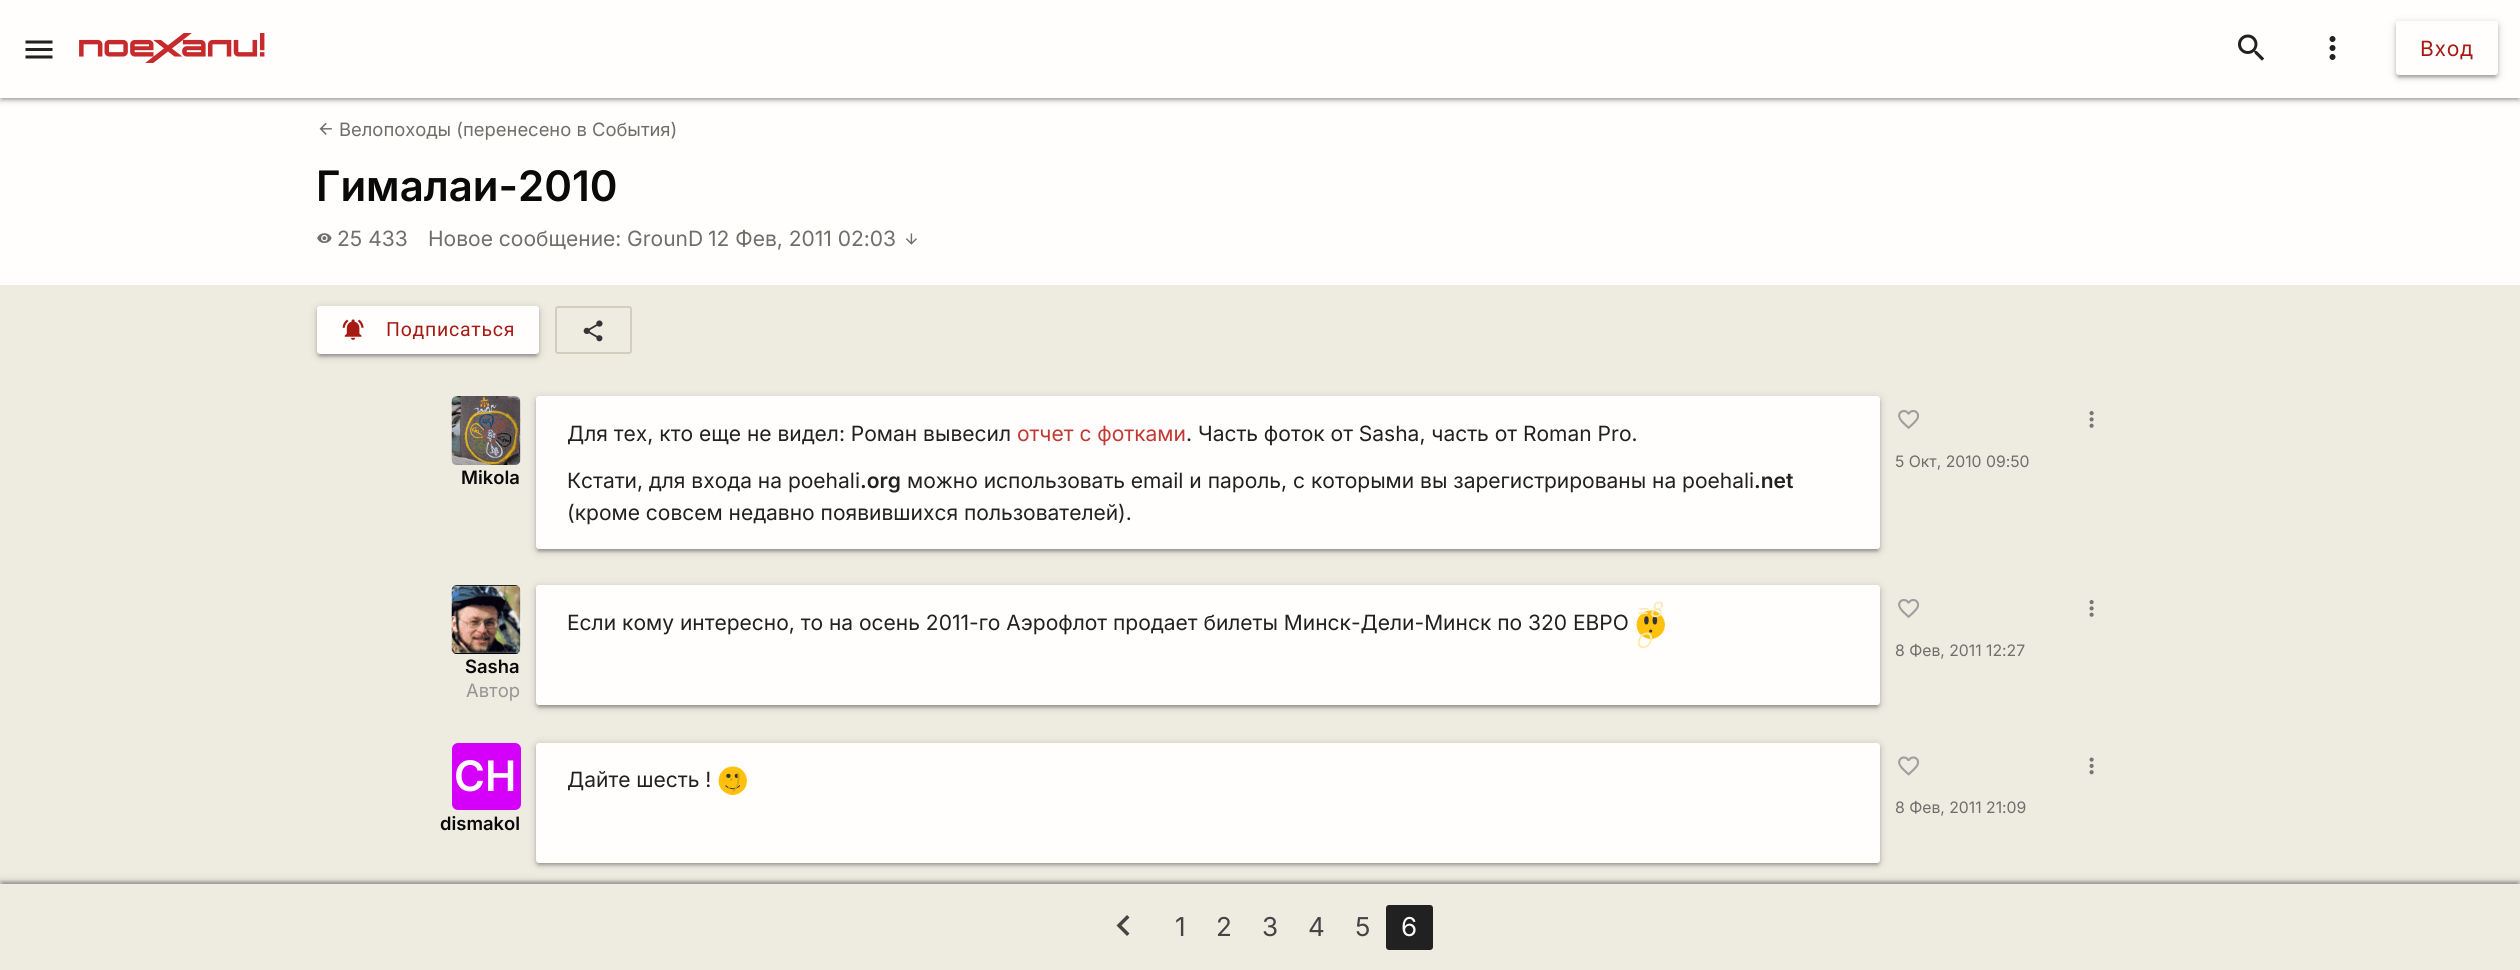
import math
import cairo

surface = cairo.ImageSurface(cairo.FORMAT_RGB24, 2520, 970)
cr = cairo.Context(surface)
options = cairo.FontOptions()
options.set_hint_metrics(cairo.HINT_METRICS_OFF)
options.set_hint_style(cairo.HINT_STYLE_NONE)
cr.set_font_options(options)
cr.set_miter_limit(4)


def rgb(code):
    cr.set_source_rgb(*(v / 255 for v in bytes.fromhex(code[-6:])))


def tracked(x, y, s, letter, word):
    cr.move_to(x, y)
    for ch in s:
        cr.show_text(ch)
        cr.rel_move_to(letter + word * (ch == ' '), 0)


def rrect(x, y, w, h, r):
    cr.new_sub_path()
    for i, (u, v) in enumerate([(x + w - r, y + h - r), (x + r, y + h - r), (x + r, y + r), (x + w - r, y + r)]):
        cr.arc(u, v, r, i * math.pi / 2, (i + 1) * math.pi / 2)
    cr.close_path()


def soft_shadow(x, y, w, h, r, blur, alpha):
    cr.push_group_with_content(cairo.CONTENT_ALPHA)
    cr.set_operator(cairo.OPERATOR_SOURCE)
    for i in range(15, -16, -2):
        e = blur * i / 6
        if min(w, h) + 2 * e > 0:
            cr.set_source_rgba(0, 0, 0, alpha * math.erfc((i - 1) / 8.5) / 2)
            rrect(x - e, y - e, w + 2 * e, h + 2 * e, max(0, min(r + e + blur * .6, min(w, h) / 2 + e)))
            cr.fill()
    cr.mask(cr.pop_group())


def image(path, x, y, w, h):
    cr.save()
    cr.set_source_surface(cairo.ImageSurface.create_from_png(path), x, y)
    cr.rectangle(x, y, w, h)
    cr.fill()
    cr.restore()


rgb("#eeebe1")
cr.paint()
rgb("#fffefc")
cr.rectangle(0, 98, 2520, 187)
cr.fill()
rgb("#000000")
soft_shadow(0, 2, 2520, 97, 0, 4, 0.2)
soft_shadow(3, 8, 2514, 91, 0, 1, 0.12)
soft_shadow(0, 3, 2520, 98, 0, 1.5, 0.14)
rgb("#fffefc")
cr.rectangle(0, 0, 2520, 98)
cr.fill()
image("img/1.png", 25, 40, 28, 19)
image("img/2.png", 79, 33, 186, 30)
image("img/3.png", 2238, 34, 27, 27)
image("img/4.png", 2329, 36, 7, 24)
rgb("#000000")
soft_shadow(2396, 23, 102, 54, 3, 4, 0.2)
soft_shadow(2399, 29, 96, 48, 0, 1, 0.12)
soft_shadow(2396, 24, 102, 54, 3, 1.5, 0.14)
rgb("#fffefc")
rrect(2396, 21, 102, 54, 3)
cr.fill()
image("img/5.png", 319, 122, 13, 13)
image("img/6.png", 317, 233, 15, 10)
image("img/7.png", 905, 233, 12, 12)
rgb("#000000")
soft_shadow(317, 308, 222, 48, 3, 4, 0.2)
soft_shadow(320, 314, 216, 42, 0, 1, 0.12)
soft_shadow(317, 309, 222, 48, 3, 1.5, 0.14)
rgb("#fffefc")
rrect(317, 306, 222, 48, 3)
cr.fill()
image("img/8.png", 342, 319, 22, 21)
rrect(556, 307, 75, 46, 2)
rgb("#d2cdbc")
cr.stroke()
image("img/9.png", 583, 320, 20, 22)
rgb("#000000")
soft_shadow(536, 398, 1344, 153, 3, 4, 0.2)
soft_shadow(539, 404, 1338, 147, 0, 1, 0.12)
soft_shadow(536, 399, 1344, 153, 3, 1.5, 0.14)
rgb("#fffefc")
rrect(536, 396, 1344, 153, 3)
cr.fill()
image("img/10.png", 2089, 411, 5, 17)
image("img/11.png", 1898, 410, 22, 19)
rrect(452, 396, 69, 69, 6)
cr.fill()
image("img/12.png", 451, 396, 70, 69)
rgb("#000000")
soft_shadow(536, 587, 1344, 120, 3, 4, 0.2)
soft_shadow(539, 593, 1338, 114, 0, 1, 0.12)
soft_shadow(536, 588, 1344, 120, 3, 1.5, 0.14)
rgb("#fffefc")
rrect(536, 585, 1344, 120, 3)
cr.fill()
image("img/13.png", 1636, 610, 29, 29)
image("img/10.png", 2089, 600, 5, 17)
image("img/11.png", 1898, 599, 22, 19)
rrect(452, 585, 69, 69, 6)
cr.fill()
image("img/14.png", 451, 585, 70, 69)
rgb("#d500f9")
rrect(452, 743, 69, 67, 6)
cr.fill()
rgb("#000000")
soft_shadow(536, 744, 1344, 120, 3, 4, 0.2)
soft_shadow(539, 750, 1338, 114, 0, 1, 0.12)
soft_shadow(536, 746, 1344, 120, 3, 1.5, 0.14)
rgb("#fffefc")
rrect(536, 743, 1344, 120, 3)
cr.fill()
image("img/15.png", 718, 766, 29, 29)
image("img/16.png", 2089, 757, 5, 18)
image("img/17.png", 1898, 756, 22, 20)
rgb("#000000")
soft_shadow(0, 882, 2520, 87, 0, 4, 0.2)
soft_shadow(3, 882, 2514, 81, 0, 1, 0.12)
soft_shadow(0, 881, 2520, 87, 0, 1.5, 0.14)
rgb("#eeebe1")
cr.rectangle(0, 884, 2520, 86)
cr.fill()
rgb("#444444")
cr.new_path()
cr.move_to(1129.5, 917.5)
cr.line_to(1121.5, 925.5)
cr.line_to(1129.5, 933.5)
cr.line_to(1127, 936)
cr.line_to(1116.5, 925.5)
cr.line_to(1127, 915)
cr.close_path()
cr.fill()
rgb("#212121")
rrect(1386, 905, 47, 45, 3)
cr.fill()
cr.select_font_face("Inter")
cr.set_font_size(21)
rgb("#a61a14")
tracked(2420, 56, "Вход", 0.75, 0)
cr.set_font_size(18.4)
rgb("#706e6b")
cr.move_to(339, 136)
cr.show_text("Велопоходы (перенесено в События)")
cr.select_font_face("Inter SemiBold")
cr.set_font_size(42)
rgb("#0a0a0a")
cr.move_to(316, 201)
cr.show_text("Гималаи-2010")
cr.select_font_face("Inter")
cr.set_font_size(21)
rgb("#706e6b")
for x, y, s in [
    (337, 246, "25 433"),
    (428, 246, "Новое сообщение:"),
    (627, 246, "GrounD"),
    (708, 246, "12 Фев, 2011 02:03"),
]:
    cr.move_to(x, y)
    cr.show_text(s)
cr.select_font_face("Roboto")
cr.set_font_size(19.5)
rgb("#a61a14")
tracked(386, 336, "Подписаться", 0.75, 0)
cr.select_font_face("Inter")
cr.set_font_size(21)
rgb("#212121")
cr.move_to(567, 441)
cr.show_text("Для тех, кто еще не видел: Роман вывесил")
rgb("#c23934")
cr.move_to(1017, 441)
cr.show_text("отчет с фотками")
rgb("#212121")
cr.move_to(1186, 441)
cr.show_text(". Часть фоток от Sasha, часть от Roman Pro.")
cr.move_to(567, 488)
cr.show_text("Кстати, для входа на poehali")
cr.select_font_face("Inter SemiBold")
cr.move_to(860, 488)
cr.show_text(".org")
cr.select_font_face("Inter")
cr.move_to(907, 488)
cr.show_text("можно использовать email и пароль, с которыми вы зарегистрированы на poehali")
cr.select_font_face("Inter SemiBold")
cr.move_to(1754, 488)
cr.show_text(".net")
cr.select_font_face("Inter")
cr.move_to(567, 520)
cr.show_text("(кроме совсем недавно появившихся пользователей).")
cr.set_font_size(15.75)
rgb("#706e6b")
cr.move_to(1895, 467)
cr.show_text("5 Окт, 2010 09:50")
cr.select_font_face("Inter SemiBold")
cr.set_font_size(18.4)
rgb("#0a0a0a")
cr.move_to(461, 484)
cr.show_text("Mikola")
cr.select_font_face("Inter")
cr.set_font_size(21)
rgb("#212121")
cr.move_to(567, 630)
cr.show_text("Если кому интересно, то на осень 2011-го Аэрофлот продает билеты Минск-Дели-Минск по 320 ЕВРО")
cr.select_font_face("Inter", cairo.FONT_SLANT_ITALIC)
rgb("#f9e9ba")
cr.move_to(1635, 617)
cr.show_text("=8")
rgb("#ffeaad")
cr.move_to(1635, 648)
cr.show_text("O")
cr.select_font_face("Inter")
cr.set_font_size(15.75)
rgb("#706e6b")
cr.move_to(1895, 656)
cr.show_text("8 Фев, 2011 12:27")
cr.select_font_face("Inter SemiBold")
cr.set_font_size(18.4)
rgb("#0a0a0a")
cr.move_to(465, 673)
cr.show_text("Sasha")
cr.select_font_face("Inter")
rgb("#969492")
cr.move_to(466, 697)
cr.show_text("Автор")
cr.select_font_face("Inter SemiBold")
cr.set_font_size(42)
rgb("#fafafa")
cr.move_to(454, 791)
cr.show_text("СН")
cr.set_font_size(18.4)
rgb("#0a0a0a")
cr.move_to(440, 830)
cr.show_text("dismakol")
cr.select_font_face("Inter")
cr.set_font_size(21)
rgb("#212121")
cr.move_to(567, 787)
cr.show_text("Дайте шесть !")
cr.select_font_face("Inter", cairo.FONT_SLANT_ITALIC)
rgb("#daa715")
cr.move_to(726, 789)
cr.show_text(":)")
cr.select_font_face("Inter")
cr.set_font_size(15.75)
rgb("#706e6b")
cr.move_to(1895, 813)
cr.show_text("8 Фев, 2011 21:09")
cr.set_font_size(26)
rgb("#444444")
for x, y, s in [
    (1175, 936, "1"),
    (1216, 936, "2"),
    (1262, 936, "3"),
    (1308, 936, "4"),
    (1355, 936, "5"),
]:
    cr.move_to(x, y)
    cr.show_text(s)
rgb("#fafafa")
cr.move_to(1401, 936)
cr.show_text("6")
surface.write_to_png("page.png")
